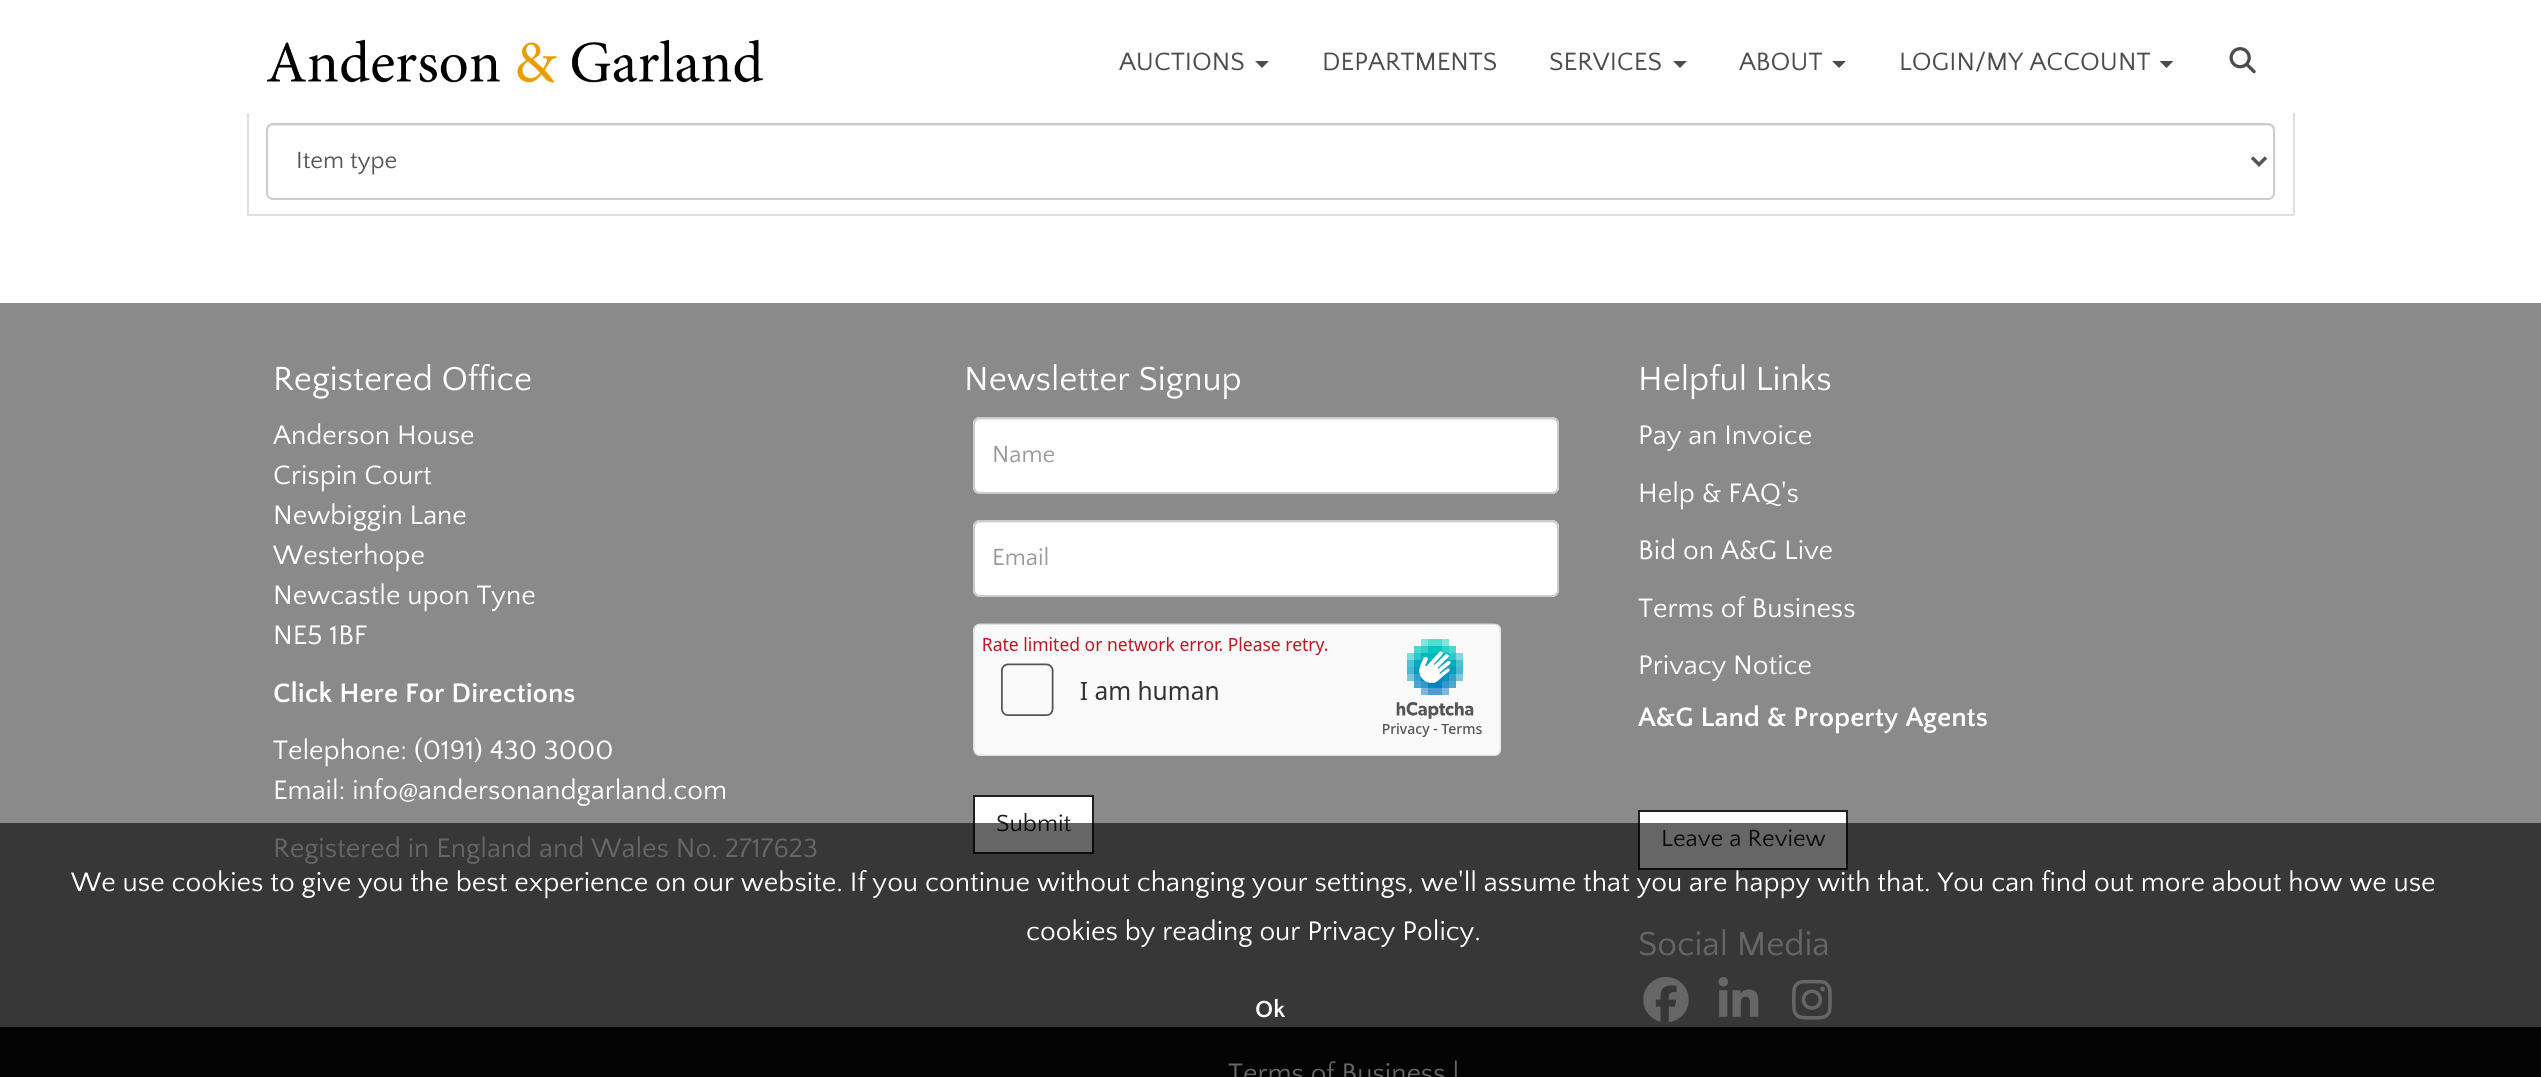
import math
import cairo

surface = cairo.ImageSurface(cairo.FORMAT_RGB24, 2541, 1077)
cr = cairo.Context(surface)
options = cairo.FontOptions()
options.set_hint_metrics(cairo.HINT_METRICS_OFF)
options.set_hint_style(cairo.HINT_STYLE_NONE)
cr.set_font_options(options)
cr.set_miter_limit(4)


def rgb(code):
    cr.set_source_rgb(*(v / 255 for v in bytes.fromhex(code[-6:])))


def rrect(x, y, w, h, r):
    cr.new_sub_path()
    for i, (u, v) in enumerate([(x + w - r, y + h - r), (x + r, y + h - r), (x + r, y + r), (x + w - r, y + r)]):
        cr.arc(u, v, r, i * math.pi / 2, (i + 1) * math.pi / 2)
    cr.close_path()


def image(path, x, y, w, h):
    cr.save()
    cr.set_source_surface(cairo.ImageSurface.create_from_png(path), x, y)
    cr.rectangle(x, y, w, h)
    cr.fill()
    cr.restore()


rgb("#ffffff")
cr.paint()
image("img/1.png", 267, 39, 496, 44)
rgb("#4c4c4d")
cr.new_path()
cr.move_to(1255, 61)
cr.line_to(1269, 61)
cr.line_to(1262, 68)
cr.close_path()
cr.fill()
cr.new_path()
cr.move_to(1673, 61)
cr.line_to(1687, 61)
cr.line_to(1680, 68)
cr.close_path()
cr.fill()
cr.new_path()
cr.move_to(1832, 61)
cr.line_to(1846, 61)
cr.line_to(1839, 68)
cr.close_path()
cr.fill()
cr.new_path()
cr.move_to(2159.5, 61)
cr.line_to(2173.5, 61)
cr.line_to(2166.5, 68)
cr.close_path()
cr.fill()
image("img/2.png", 2229, 47, 27, 27)
for x, y, w, h, color in [
    (2293, 113, 2, 102, "#e0e0e0"),
    (247, 214, 2047, 2, "#e0e0e0"),
    (247, 113, 2, 102, "#e0e0e0"),
]:
    rgb(color)
    cr.rectangle(x, y, w, h)
    cr.fill()
rgb("#ececec")
cr.new_path()
cr.move_to(273, 126)
cr.line_to(2268, 126)
cr.curve_to(2271, 126, 2273, 128, 2273, 131)
cr.line_to(2273, 129)
cr.curve_to(2273, 126, 2271, 124, 2268, 124)
cr.line_to(273, 124)
cr.curve_to(270, 124, 268, 126, 268, 129)
cr.line_to(268, 131)
cr.curve_to(268, 128, 270, 126, 273, 126)
cr.close_path()
cr.fill()
rrect(267, 124, 2007, 75, 6)
rgb("#cccccc")
cr.stroke()
cr.new_path()
cr.move_to(2252, 157.5)
cr.line_to(2259, 164.5)
cr.line_to(2266, 157.5)
rgb("#555555")
cr.set_line_width(3.5)
cr.stroke()
rgb("#8a8a8a")
cr.rectangle(0, 303, 2541, 724)
cr.fill()
rgb("#ffffff")
rrect(973, 417, 586, 77, 7)
cr.fill()
rgb("#ececec")
cr.new_path()
cr.move_to(980, 420)
cr.line_to(1552, 420)
cr.curve_to(1555, 420, 1558, 422, 1558, 425)
cr.line_to(1558, 423)
cr.curve_to(1558, 420, 1556, 418, 1553, 418)
cr.line_to(980, 418)
cr.curve_to(977, 418, 975, 420, 975, 423)
cr.line_to(975, 425)
cr.curve_to(975, 422, 977, 420, 980, 420)
cr.close_path()
cr.fill()
rrect(974, 418, 584, 75, 6)
rgb("#cccccc")
cr.set_line_width(2)
cr.stroke()
rgb("#ffffff")
rrect(973, 520, 586, 77, 7)
cr.fill()
rgb("#ececec")
cr.new_path()
cr.move_to(980, 523)
cr.line_to(1552, 523)
cr.curve_to(1555, 523, 1558, 526, 1558, 528)
cr.line_to(1558, 527)
cr.curve_to(1558, 524, 1556, 522, 1553, 522)
cr.line_to(980, 522)
cr.curve_to(977, 522, 975, 524, 975, 527)
cr.line_to(975, 528)
cr.curve_to(975, 526, 977, 523, 980, 523)
cr.close_path()
cr.fill()
rrect(974, 521, 584, 75, 6)
rgb("#cccccc")
cr.stroke()
image("img/3.png", 973, 623, 529, 133)
rgb("#ffffff")
cr.rectangle(974, 796, 119, 57)
cr.fill_preserve()
rgb("#1f1f1f")
cr.stroke()
rgb("#ffffff")
cr.rectangle(1639, 811, 208, 58)
cr.fill_preserve()
rgb("#1f1f1f")
cr.stroke()
image("img/4.png", 1643, 977, 46, 46)
image("img/5.png", 1718, 977, 41, 40)
image("img/6.png", 1792, 979, 40, 41)
rgb("#080808")
cr.rectangle(0, 1027, 2541, 50)
cr.fill()
cr.select_font_face("Quattrocento Sans")
cr.set_font_size(26.25)
rgb("#4c4c4d")
for x, y, s in [
    (1119, 70, "AUCTIONS"),
    (1322, 70, "DEPARTMENTS"),
    (1549, 70, "SERVICES"),
    (1739, 70, "ABOUT"),
    (1899, 70, "LOGIN/MY ACCOUNT"),
]:
    cr.move_to(x, y)
    cr.show_text(s)
cr.set_font_size(24.5)
rgb("#555555")
cr.move_to(296, 168)
cr.show_text("Item type")
cr.set_font_size(35)
rgb("#ffffff")
cr.move_to(273, 390)
cr.show_text("Registered Office")
cr.set_font_size(28)
for x, y, s in [
    (273, 444, "Anderson House"),
    (273, 484, "Crispin Court"),
    (273, 524, "Newbiggin Lane"),
    (273, 564, "Westerhope"),
    (273, 604, "Newcastle upon Tyne"),
    (273, 644, "NE5 1BF"),
]:
    cr.move_to(x, y)
    cr.show_text(s)
cr.select_font_face("Quattrocento Sans", cairo.FONT_SLANT_NORMAL, cairo.FONT_WEIGHT_BOLD)
cr.move_to(273, 702)
cr.show_text("Click Here For Directions")
cr.select_font_face("Quattrocento Sans")
for x, y, s in [
    (273, 759, "Telephone: (0191) 430 3000"),
    (273, 799, "Email: info@andersonandgarland.com"),
    (273, 857, "Registered in England and Wales No. 2717623"),
]:
    cr.move_to(x, y)
    cr.show_text(s)
cr.set_font_size(35)
cr.move_to(964, 390)
cr.show_text("Newsletter Signup")
cr.set_font_size(24.5)
rgb("#999999")
cr.move_to(992, 462)
cr.show_text("Name")
cr.move_to(992, 565)
cr.show_text("Email")
rgb("#1f1f1f")
cr.move_to(996, 831)
cr.show_text("Submit")
cr.set_font_size(35)
rgb("#ffffff")
cr.move_to(1638, 390)
cr.show_text("Helpful Links")
cr.set_font_size(28)
for x, y, s in [
    (1638, 444, "Pay an Invoice"),
    (1638, 502, "Help & FAQ's"),
    (1638, 559, "Bid on A&G Live"),
    (1638, 617, "Terms of Business"),
    (1638, 674, "Privacy Notice"),
]:
    cr.move_to(x, y)
    cr.show_text(s)
cr.select_font_face("Quattrocento Sans", cairo.FONT_SLANT_NORMAL, cairo.FONT_WEIGHT_BOLD)
cr.move_to(1638, 726)
cr.show_text("A&G Land & Property Agents")
cr.select_font_face("Quattrocento Sans")
cr.set_font_size(24.5)
rgb("#1f1f1f")
cr.move_to(1661, 846)
cr.show_text("Leave a Review")
cr.set_font_size(35)
rgb("#ffffff")
cr.move_to(1638, 955)
cr.show_text("Social Media")
cr.set_font_size(28)
cr.move_to(1228, 1082)
cr.show_text("Terms of Business |")
cr.set_source_rgba(0, 0, 0, 0.6)
cr.rectangle(0, 823, 2541, 254)
cr.fill()
rgb("#ffffff")
cr.move_to(71, 891)
cr.show_text("We use cookies to give you the best experience on our website. If you continue without changing your settings, we'll assume that you are happy with that. You can find out more about how we use")
cr.move_to(1026, 940)
cr.show_text("cookies by reading our Privacy Policy.")
cr.select_font_face("Quattrocento Sans", cairo.FONT_SLANT_NORMAL, cairo.FONT_WEIGHT_BOLD)
cr.set_font_size(24.5)
cr.move_to(1255, 1017)
cr.show_text("Ok")
surface.write_to_png("page.png")
